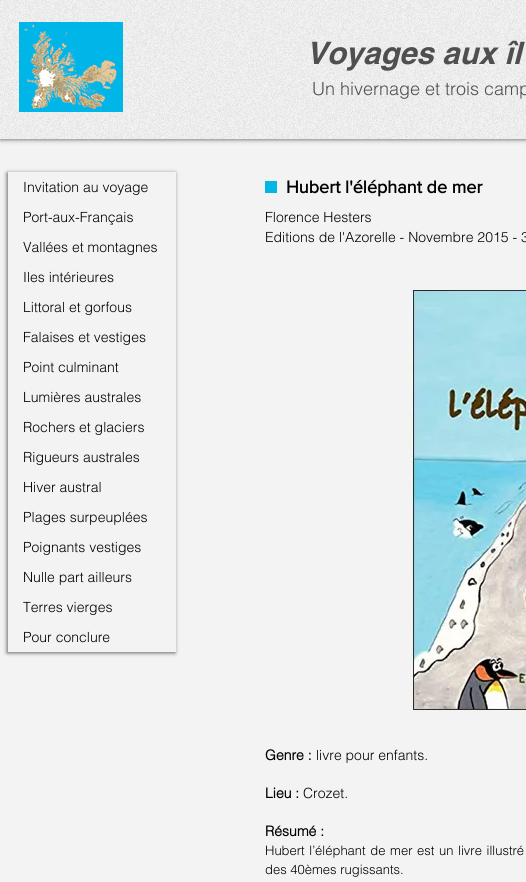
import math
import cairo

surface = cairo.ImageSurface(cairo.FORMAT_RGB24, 526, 882)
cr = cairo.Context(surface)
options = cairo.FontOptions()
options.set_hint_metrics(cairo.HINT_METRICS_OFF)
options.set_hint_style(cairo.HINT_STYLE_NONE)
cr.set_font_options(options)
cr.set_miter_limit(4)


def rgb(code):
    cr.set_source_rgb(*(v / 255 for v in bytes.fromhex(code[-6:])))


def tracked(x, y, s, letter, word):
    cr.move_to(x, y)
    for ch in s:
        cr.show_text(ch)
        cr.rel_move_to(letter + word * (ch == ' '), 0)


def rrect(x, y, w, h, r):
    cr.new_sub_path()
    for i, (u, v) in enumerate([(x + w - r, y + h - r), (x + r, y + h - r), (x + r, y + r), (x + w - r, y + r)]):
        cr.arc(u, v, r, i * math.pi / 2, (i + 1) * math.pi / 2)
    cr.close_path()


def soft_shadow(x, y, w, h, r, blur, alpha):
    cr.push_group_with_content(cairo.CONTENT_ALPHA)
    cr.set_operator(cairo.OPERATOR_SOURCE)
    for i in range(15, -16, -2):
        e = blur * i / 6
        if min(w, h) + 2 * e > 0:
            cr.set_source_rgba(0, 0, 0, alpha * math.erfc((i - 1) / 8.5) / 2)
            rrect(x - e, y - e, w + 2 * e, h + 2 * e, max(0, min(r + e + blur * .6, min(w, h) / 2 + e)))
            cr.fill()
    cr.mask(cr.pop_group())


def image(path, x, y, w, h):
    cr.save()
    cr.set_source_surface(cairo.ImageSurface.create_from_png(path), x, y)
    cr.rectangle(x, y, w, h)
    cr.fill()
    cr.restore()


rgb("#f3f3f3")
cr.paint()
rgb("#000000")
soft_shadow(0, 0, 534, 139, 0, 2.5, 0.7)
rgb("#f3f3f3")
cr.rectangle(0, 0, 526, 139)
cr.fill()
image("img/1.png", 0, 0, 526, 139)
image("img/2.png", 19, 22, 104, 90)
cr.save()
cr.set_fill_rule(cairo.FILL_RULE_EVEN_ODD)
cr.new_path()
cr.move_to(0, 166)
cr.line_to(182, 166)
cr.line_to(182, 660)
cr.line_to(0, 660)
cr.close_path()
cr.move_to(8, 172)
cr.line_to(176, 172)
cr.line_to(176, 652)
cr.line_to(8, 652)
cr.close_path()
cr.clip()
rgb("#000000")
soft_shadow(7, 173, 168, 480, 0, 2, 0.6)
cr.restore()
image("img/3.png", 261, 177, 17, 17)
image("img/4.png", 407, 290, 119, 420)
cr.select_font_face("helvetica", cairo.FONT_SLANT_ITALIC, cairo.FONT_WEIGHT_BOLD)
cr.set_font_size(31)
rgb("#4f4f4f")
cr.move_to(306, 64)
cr.show_text("Voyages aux îl")
cr.select_font_face("helvetica Light")
cr.set_font_size(18)
cr.move_to(312, 95)
cr.show_text("Un hivernage et trois camp")
cr.set_font_size(14)
rgb("#000000")
for x, y, s in [
    (23, 192, "Invitation au voyage"),
    (23, 222, "Port-aux-Français"),
    (23, 252, "Vallées et montagnes"),
    (23, 282, "Iles intérieures"),
    (23, 312, "Littoral et gorfous"),
    (23, 342, "Falaises et vestiges"),
    (23, 372, "Point culminant"),
    (23, 402, "Lumières australes"),
    (23, 432, "Rochers et glaciers"),
    (23, 462, "Rigueurs australes"),
    (23, 492, "Hiver austral"),
    (23, 522, "Plages surpeuplées"),
    (23, 552, "Poignants vestiges"),
    (23, 582, "Nulle part ailleurs"),
    (23, 612, "Terres vierges"),
    (23, 642, "Pour conclure"),
]:
    cr.move_to(x, y)
    cr.show_text(s)
cr.select_font_face("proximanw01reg", cairo.FONT_SLANT_NORMAL, cairo.FONT_WEIGHT_BOLD)
cr.set_font_size(18)
cr.move_to(286, 193)
cr.show_text("Hubert l'éléphant de mer")
cr.select_font_face("helvetica Light")
cr.set_font_size(14)
cr.move_to(265, 222)
cr.show_text("Florence Hesters")
cr.move_to(265, 242)
cr.show_text("Editions de l'Azorelle - Novembre 2015 - 3")
cr.select_font_face("helvetica", cairo.FONT_SLANT_NORMAL, cairo.FONT_WEIGHT_BOLD)
cr.move_to(265, 760)
cr.show_text("Genre :")
cr.select_font_face("helvetica Light")
cr.move_to(316, 760)
cr.show_text("livre pour enfants.")
cr.select_font_face("helvetica", cairo.FONT_SLANT_NORMAL, cairo.FONT_WEIGHT_BOLD)
cr.move_to(265, 798)
cr.show_text("Lieu :")
cr.select_font_face("helvetica Light")
cr.move_to(303, 798)
cr.show_text("Crozet.")
cr.select_font_face("helvetica", cairo.FONT_SLANT_NORMAL, cairo.FONT_WEIGHT_BOLD)
cr.move_to(265, 836)
cr.show_text("Résumé :")
cr.select_font_face("helvetica Light")
cr.set_font_size(13)
tracked(265, 855, "Hubert l’éléphant de mer est un livre illustré", 0, 1)
cr.move_to(265, 874)
cr.show_text("des 40èmes rugissants.")
surface.write_to_png("page.png")
